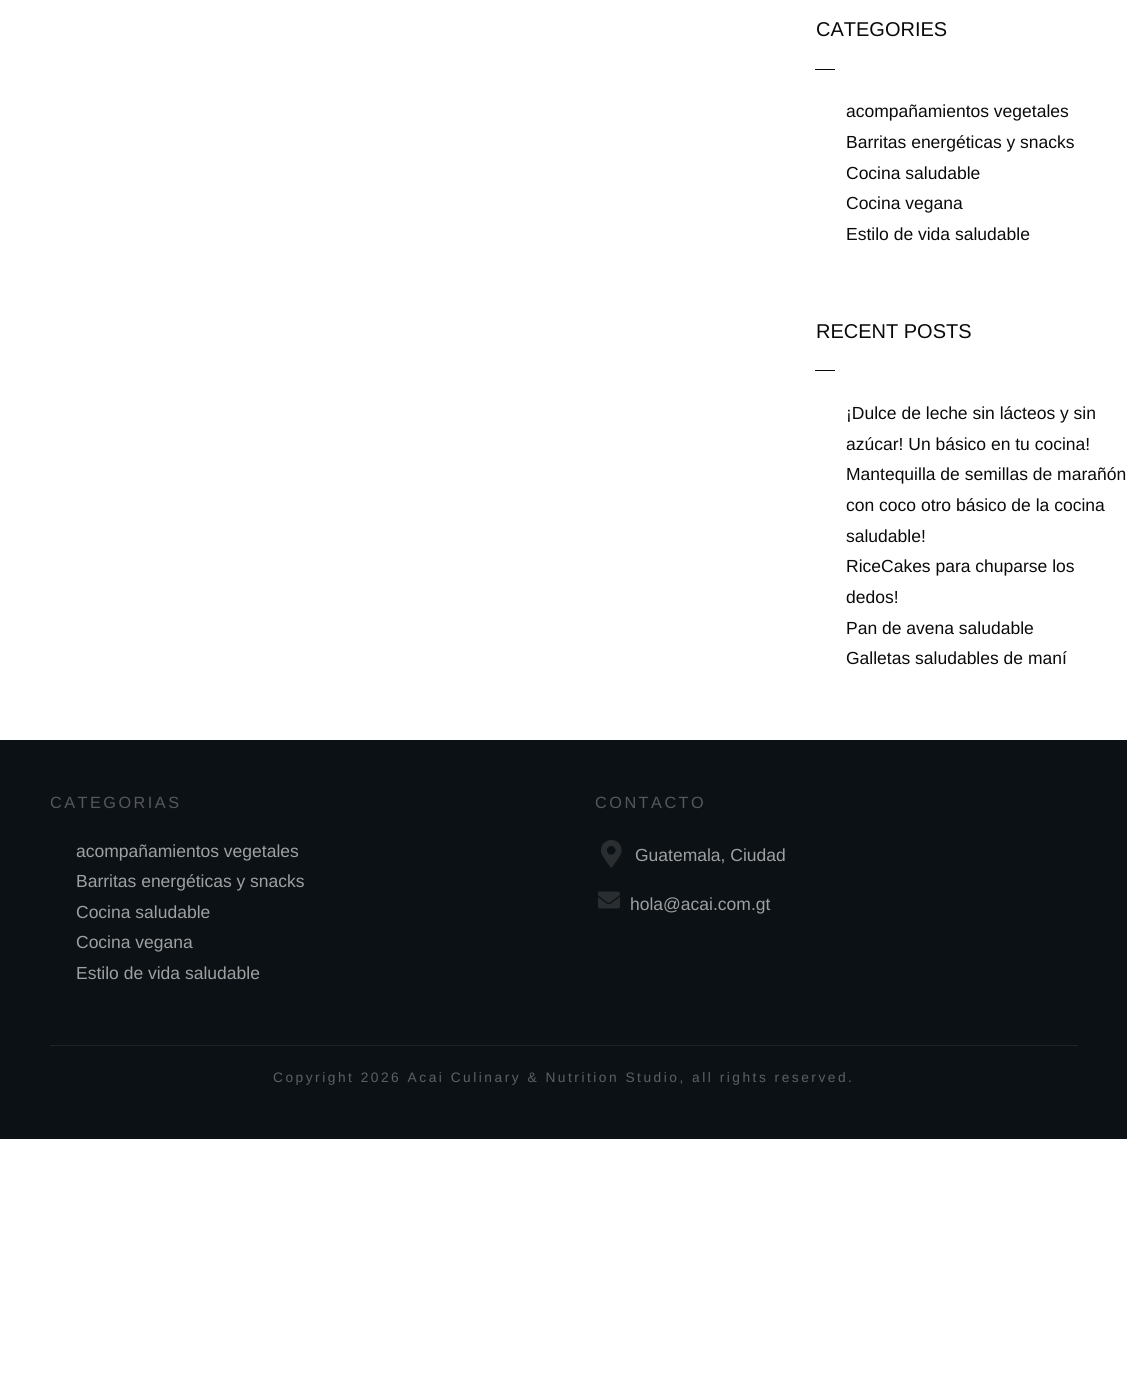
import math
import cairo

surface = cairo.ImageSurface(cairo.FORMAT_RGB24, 1127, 1384)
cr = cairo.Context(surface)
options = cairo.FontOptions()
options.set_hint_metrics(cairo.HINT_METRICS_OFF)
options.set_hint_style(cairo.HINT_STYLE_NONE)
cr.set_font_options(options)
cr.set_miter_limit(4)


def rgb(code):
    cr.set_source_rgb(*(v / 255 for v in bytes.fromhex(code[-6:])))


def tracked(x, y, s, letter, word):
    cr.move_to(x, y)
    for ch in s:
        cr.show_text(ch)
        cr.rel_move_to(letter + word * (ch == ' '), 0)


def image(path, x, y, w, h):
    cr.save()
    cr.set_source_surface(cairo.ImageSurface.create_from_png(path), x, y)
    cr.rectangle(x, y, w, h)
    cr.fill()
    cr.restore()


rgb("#ffffff")
cr.paint()
for x, y, w, h, color in [
    (815, 69, 20, 1, "#0a0a0a"),
    (815, 370, 20, 1, "#0a0a0a"),
    (0, 740, 1127, 399, "#0c1115"),
    (50, 1045, 1028, 1, "#1f2428"),
]:
    rgb(color)
    cr.rectangle(x, y, w, h)
    cr.fill()
image("img/1.png", 601, 840, 21, 28)
image("img/2.png", 598, 891, 22, 18)
cr.select_font_face("Liberation Sans")
cr.set_font_size(20)
rgb("#0a0a0a")
cr.move_to(816, 36)
cr.show_text("CATEGORIES")
cr.set_font_size(17.5)
for x, y, s in [
    (846, 117, "acompañamientos vegetales"),
    (846, 148, "Barritas energéticas y snacks"),
    (846, 179, "Cocina saludable"),
    (846, 209, "Cocina vegana"),
    (846, 240, "Estilo de vida saludable"),
]:
    cr.move_to(x, y)
    cr.show_text(s)
cr.set_font_size(20)
cr.move_to(816, 338)
cr.show_text("RECENT POSTS")
cr.set_font_size(17.5)
for x, y, s in [
    (846, 419, "¡Dulce de leche sin lácteos y sin"),
    (846, 450, "azúcar! Un básico en tu cocina!"),
    (846, 480, "Mantequilla de semillas de marañón"),
    (846, 511, "con coco otro básico de la cocina"),
    (846, 542, "saludable!"),
    (846, 572, "RiceCakes para chuparse los"),
    (846, 603, "dedos!"),
    (846, 634, "Pan de avena saludable"),
    (846, 664, "Galletas saludables de maní"),
]:
    cr.move_to(x, y)
    cr.show_text(s)
cr.set_font_size(16.25)
rgb("#55585b")
tracked(50, 808, "CATEGORIAS", 2.5, 0)
cr.set_font_size(17.5)
rgb("#9ea0a1")
for x, y, s in [
    (76, 857, "acompañamientos vegetales"),
    (76, 887, "Barritas energéticas y snacks"),
    (76, 918, "Cocina saludable"),
    (76, 948, "Cocina vegana"),
    (76, 979, "Estilo de vida saludable"),
]:
    cr.move_to(x, y)
    cr.show_text(s)
cr.set_font_size(16.25)
rgb("#55585b")
tracked(595, 808, "CONTACTO", 2.5, 0)
cr.set_font_size(17.5)
rgb("#9ea0a1")
cr.move_to(635, 861)
cr.show_text("Guatemala, Ciudad")
cr.move_to(630, 910)
cr.show_text("hola@acai.com.gt")
cr.set_font_size(13.75)
rgb("#5c6062")
tracked(273, 1082, "Copyright 2026 Acai Culinary & Nutrition Studio, all rights reserved.", 2.5, 0)
surface.write_to_png("page.png")
